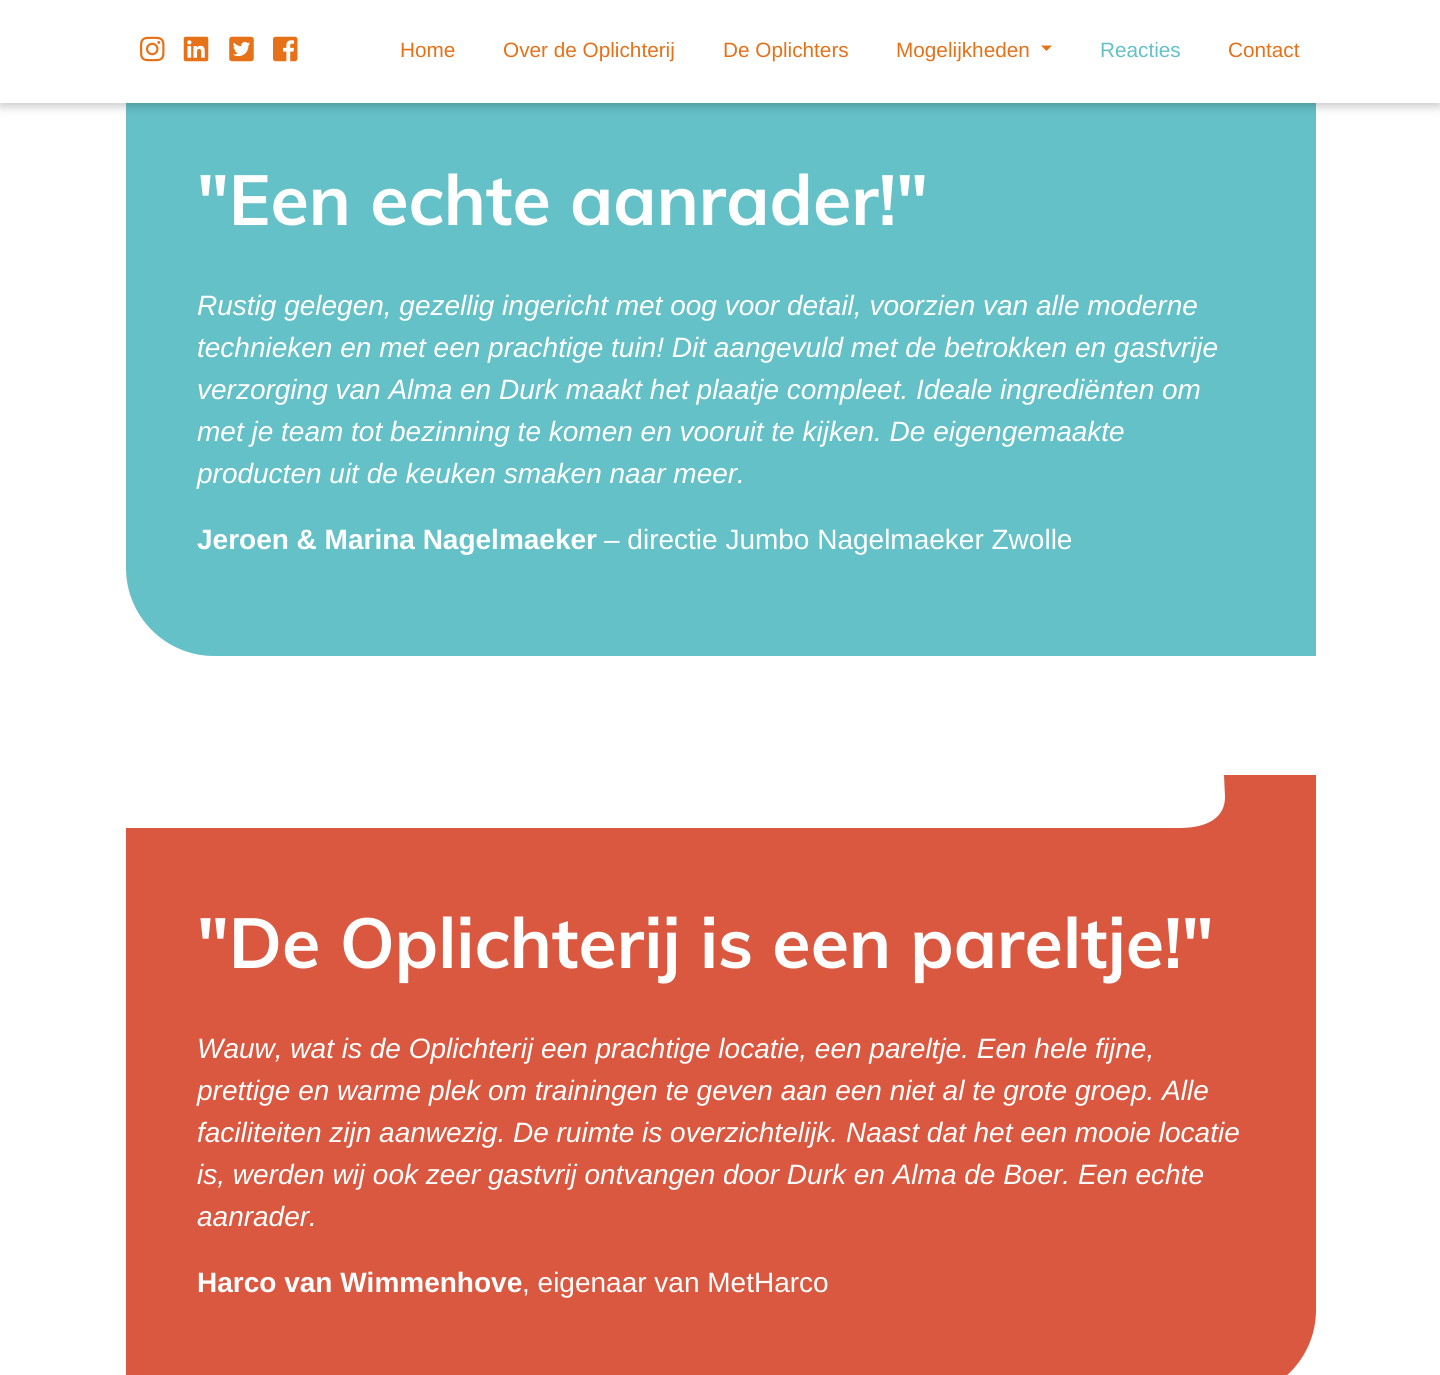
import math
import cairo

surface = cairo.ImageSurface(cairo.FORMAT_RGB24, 1440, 1375)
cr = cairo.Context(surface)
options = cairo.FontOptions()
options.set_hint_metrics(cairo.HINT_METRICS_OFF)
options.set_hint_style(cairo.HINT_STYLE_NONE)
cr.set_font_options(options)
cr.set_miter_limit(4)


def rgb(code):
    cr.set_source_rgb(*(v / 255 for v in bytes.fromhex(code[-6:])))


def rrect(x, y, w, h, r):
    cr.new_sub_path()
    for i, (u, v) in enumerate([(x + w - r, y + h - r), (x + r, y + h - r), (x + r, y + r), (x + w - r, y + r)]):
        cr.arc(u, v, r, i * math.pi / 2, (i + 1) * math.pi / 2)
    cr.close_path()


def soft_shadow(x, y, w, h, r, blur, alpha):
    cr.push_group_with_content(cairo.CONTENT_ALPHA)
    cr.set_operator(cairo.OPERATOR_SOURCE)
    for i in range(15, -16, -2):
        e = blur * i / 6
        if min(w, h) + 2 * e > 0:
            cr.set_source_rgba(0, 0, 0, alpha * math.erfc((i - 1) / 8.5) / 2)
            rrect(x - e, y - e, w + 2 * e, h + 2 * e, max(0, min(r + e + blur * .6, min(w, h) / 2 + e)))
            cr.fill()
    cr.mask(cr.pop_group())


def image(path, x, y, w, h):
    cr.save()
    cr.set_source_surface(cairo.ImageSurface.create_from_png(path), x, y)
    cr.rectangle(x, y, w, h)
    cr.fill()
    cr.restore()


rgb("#ffffff")
cr.paint()
rgb("#64c1c7")
cr.new_path()
cr.move_to(126, 86)
cr.line_to(1316, 86)
cr.line_to(1316, 656)
cr.line_to(214, 656)
cr.curve_to(165.5, 656, 126, 616.5, 126, 568)
cr.close_path()
cr.fill()
rgb("#000000")
soft_shadow(0, 4, 1440, 103, 0, 4.5, 0.2)
rgb("#ffffff")
cr.rectangle(0, 0, 1440, 103)
cr.fill()
image("img/1.png", 140, 36, 25, 26)
image("img/2.png", 183, 36, 26, 26)
image("img/3.png", 229, 36, 25, 26)
image("img/4.png", 273, 36, 25, 26)
rgb("#e67118")
cr.new_path()
cr.move_to(1041, 45.5)
cr.line_to(1052, 45.5)
cr.line_to(1046.5, 51)
cr.close_path()
cr.fill()
rgb("#db5840")
cr.new_path()
cr.move_to(1225, 797)
cr.line_to(1224, 775)
cr.line_to(1316, 775)
cr.line_to(1316, 828)
cr.line_to(1179, 828)
cr.curve_to(1210, 828, 1225, 816, 1225, 797)
cr.close_path()
cr.fill()
cr.new_path()
cr.move_to(126, 828)
cr.line_to(1316, 828)
cr.line_to(1316, 1310)
cr.curve_to(1316, 1358.5, 1276.5, 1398, 1228, 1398)
cr.line_to(126, 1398)
cr.close_path()
cr.fill()
cr.select_font_face("Liberation Sans")
cr.set_font_size(20.75)
rgb("#e67118")
for x, y, s in [
    (400, 57, "Home"),
    (503, 57, "Over de Oplichterij"),
    (723, 57, "De Oplichters"),
    (896, 57, "Mogelijkheden"),
]:
    cr.move_to(x, y)
    cr.show_text(s)
rgb("#64c1c7")
cr.move_to(1100, 57)
cr.show_text("Reacties")
rgb("#e67118")
cr.move_to(1228, 57)
cr.show_text("Contact")
cr.select_font_face("Muli", cairo.FONT_SLANT_NORMAL, cairo.FONT_WEIGHT_BOLD)
cr.set_font_size(70)
rgb("#ffffff")
cr.move_to(197, 225)
cr.show_text("\"Een echte aanrader!\"")
cr.select_font_face("Liberation Sans", cairo.FONT_SLANT_ITALIC)
cr.set_font_size(28)
for x, y, s in [
    (197, 315, "Rustig gelegen, gezellig ingericht met oog voor detail, voorzien van alle moderne"),
    (197, 357, "technieken en met een prachtige tuin! Dit aangevuld met de betrokken en gastvrije"),
    (197, 399, "verzorging van Alma en Durk maakt het plaatje compleet. Ideale ingrediënten om"),
    (197, 441, "met je team tot bezinning te komen en vooruit te kijken. De eigengemaakte"),
    (197, 483, "producten uit de keuken smaken naar meer."),
]:
    cr.move_to(x, y)
    cr.show_text(s)
cr.select_font_face("Liberation Sans", cairo.FONT_SLANT_NORMAL, cairo.FONT_WEIGHT_BOLD)
cr.move_to(197, 549)
cr.show_text("Jeroen & Marina Nagelmaeker")
cr.select_font_face("Liberation Sans")
cr.move_to(604, 549)
cr.show_text("– directie Jumbo Nagelmaeker Zwolle")
cr.select_font_face("Muli", cairo.FONT_SLANT_NORMAL, cairo.FONT_WEIGHT_BOLD)
cr.set_font_size(70)
cr.move_to(197, 968)
cr.show_text("\"De Oplichterij is een pareltje!\"")
cr.select_font_face("Liberation Sans", cairo.FONT_SLANT_ITALIC)
cr.set_font_size(28)
for x, y, s in [
    (197, 1058, "Wauw, wat is de Oplichterij een prachtige locatie, een pareltje. Een hele fijne,"),
    (197, 1100, "prettige en warme plek om trainingen te geven aan een niet al te grote groep. Alle"),
    (197, 1142, "faciliteiten zijn aanwezig. De ruimte is overzichtelijk. Naast dat het een mooie locatie"),
    (197, 1184, "is, werden wij ook zeer gastvrij ontvangen door Durk en Alma de Boer. Een echte"),
    (197, 1226, "aanrader."),
]:
    cr.move_to(x, y)
    cr.show_text(s)
cr.select_font_face("Liberation Sans", cairo.FONT_SLANT_NORMAL, cairo.FONT_WEIGHT_BOLD)
cr.move_to(197, 1292)
cr.show_text("Harco van Wimmenhove")
cr.select_font_face("Liberation Sans")
cr.move_to(522, 1292)
cr.show_text(", eigenaar van MetHarco")
surface.write_to_png("page.png")
